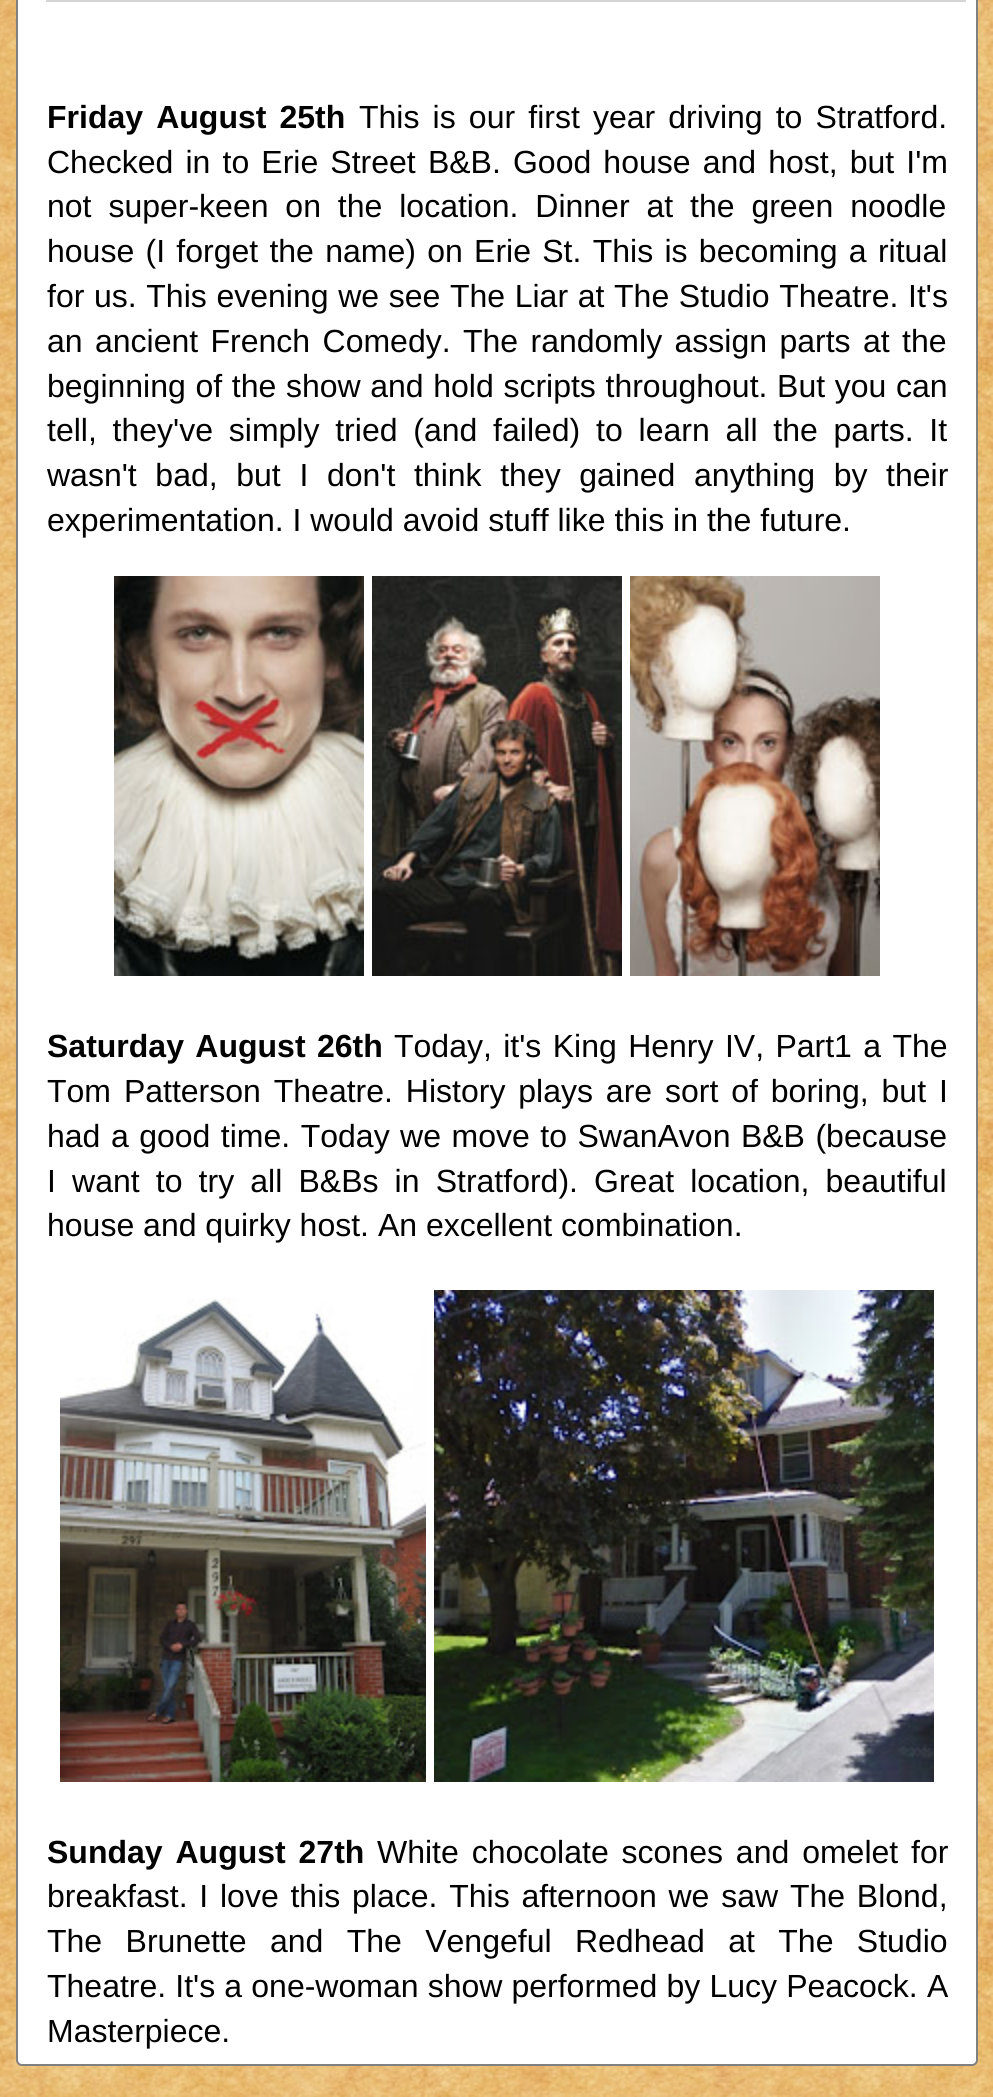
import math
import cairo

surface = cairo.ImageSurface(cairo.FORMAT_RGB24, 993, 2097)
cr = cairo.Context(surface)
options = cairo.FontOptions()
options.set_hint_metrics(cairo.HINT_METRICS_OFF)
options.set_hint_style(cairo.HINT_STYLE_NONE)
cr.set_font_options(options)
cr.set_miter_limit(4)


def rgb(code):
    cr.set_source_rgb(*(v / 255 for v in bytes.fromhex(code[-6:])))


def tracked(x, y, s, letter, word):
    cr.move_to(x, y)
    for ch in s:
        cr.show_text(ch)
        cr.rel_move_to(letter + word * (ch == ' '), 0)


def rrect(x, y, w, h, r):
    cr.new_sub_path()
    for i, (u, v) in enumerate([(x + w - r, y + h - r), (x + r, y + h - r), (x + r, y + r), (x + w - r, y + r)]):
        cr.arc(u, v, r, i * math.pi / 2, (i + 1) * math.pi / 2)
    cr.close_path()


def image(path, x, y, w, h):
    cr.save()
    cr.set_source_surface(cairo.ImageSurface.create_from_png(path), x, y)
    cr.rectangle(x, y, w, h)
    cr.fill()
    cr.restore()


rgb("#ffffff")
cr.paint()
image("img/1.png", 0, 0, 993, 2097)
rgb("#ffffff")
rrect(17, -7, 960, 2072, 5)
cr.fill_preserve()
rgb("#808080")
cr.stroke()
rgb("#d5d5d5")
cr.rectangle(46, 0, 920, 2)
cr.fill()
image("img/2.png", 114, 576, 250, 400)
image("img/3.png", 372, 576, 250, 400)
image("img/4.png", 630, 576, 250, 400)
image("img/5.png", 60, 1298, 366, 484)
image("img/6.png", 434, 1290, 500, 492)
cr.select_font_face("Liberation Sans", cairo.FONT_SLANT_NORMAL, cairo.FONT_WEIGHT_BOLD)
cr.set_font_size(32)
rgb("#000000")
tracked(47, 128, "Friday August 25th", 0, 4.25)
cr.select_font_face("Liberation Sans")
tracked(359, 128, "This is our first year driving to Stratford.", 0, 4.25)
tracked(47, 173, "Checked in to Erie Street B&B. Good house and host, but I'm", 0, 3.25)
tracked(47, 217, "not super-keen on the location. Dinner at the green noodle", 0, 8)
tracked(47, 262, "house (I forget the name) on Erie St. This is becoming a ritual", 0, 2.4)
tracked(47, 307, "for us. This evening we see The Liar at The Studio Theatre. It's", 0, 0.75)
tracked(47, 352, "an ancient French Comedy. The randomly assign parts at the", 0, 3.5)
tracked(47, 397, "beginning of the show and hold scripts throughout. But you can", 0, 0.75)
tracked(47, 441, "tell, they've simply tried (and failed) to learn all the parts. It", 0, 6.9)
tracked(47, 486, "wasn't bad, but I don't think they gained anything by their", 0, 9.75)
cr.move_to(47, 531)
cr.show_text("experimentation. I would avoid stuff like this in the future.")
cr.select_font_face("Liberation Sans", cairo.FONT_SLANT_NORMAL, cairo.FONT_WEIGHT_BOLD)
tracked(47, 1057, "Saturday August 26th", 0, 2.5)
cr.select_font_face("Liberation Sans")
tracked(394, 1057, "Today, it's King Henry IV, Part1 a The", 0, 2.5)
tracked(47, 1102, "Tom Patterson Theatre. History plays are sort of boring, but I", 0, 4)
tracked(47, 1147, "had a good time. Today we move to SwanAvon B&B (because", 0, 1.6)
tracked(47, 1192, "I want to try all B&Bs in Stratford). Great location, beautiful", 0, 7.25)
cr.move_to(47, 1236)
cr.show_text("house and quirky host. An excellent combination.")
cr.select_font_face("Liberation Sans", cairo.FONT_SLANT_NORMAL, cairo.FONT_WEIGHT_BOLD)
tracked(47, 1863, "Sunday August 27th", 0, 4)
cr.select_font_face("Liberation Sans")
tracked(377, 1863, "White chocolate scones and omelet for", 0, 4)
tracked(47, 1907, "breakfast. I love this place. This afternoon we saw The Blond,", 0, 2.9)
tracked(47, 1952, "The Brunette and The Vengeful Redhead at The Studio", 0, 14.5)
tracked(47, 1997, "Theatre. It's a one-woman show performed by Lucy Peacock. A", 0, 0.25)
cr.move_to(47, 2042)
cr.show_text("Masterpiece.")
surface.write_to_png("page.png")
